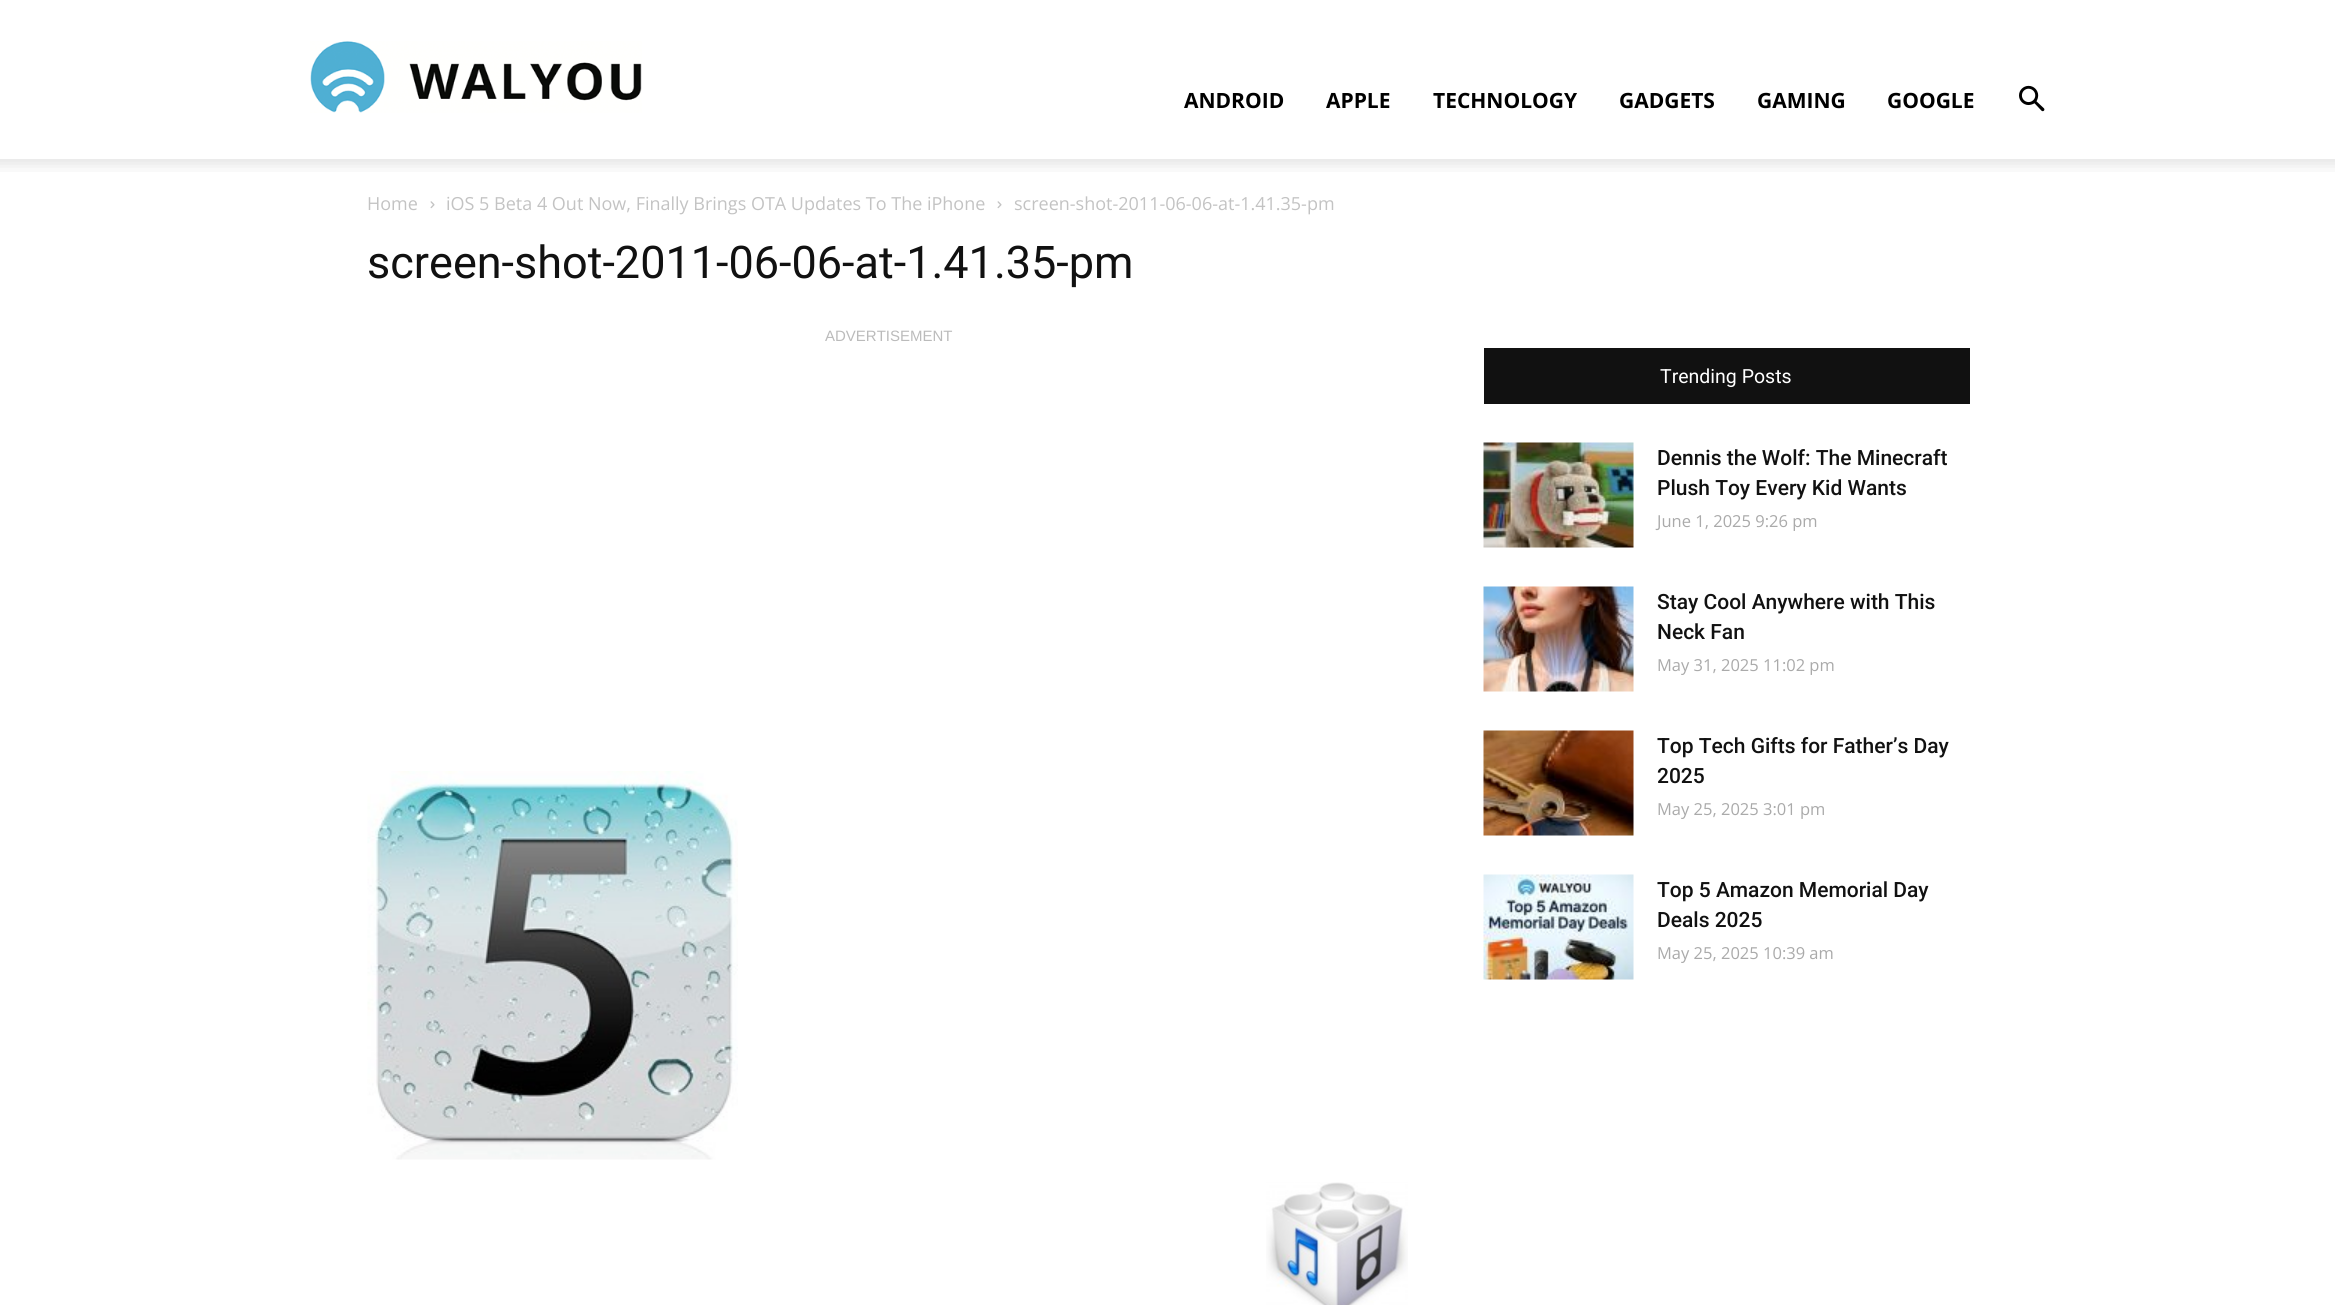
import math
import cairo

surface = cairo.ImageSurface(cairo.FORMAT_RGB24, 2335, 1305)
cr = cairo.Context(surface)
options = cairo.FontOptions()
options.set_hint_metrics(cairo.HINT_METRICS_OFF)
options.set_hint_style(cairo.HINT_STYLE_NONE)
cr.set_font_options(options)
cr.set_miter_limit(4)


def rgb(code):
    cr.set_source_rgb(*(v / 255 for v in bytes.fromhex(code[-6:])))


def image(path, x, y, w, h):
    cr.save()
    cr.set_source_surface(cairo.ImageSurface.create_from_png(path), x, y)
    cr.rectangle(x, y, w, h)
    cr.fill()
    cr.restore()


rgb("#ffffff")
cr.paint()
image("img/1.png", 310, 41, 332, 72)
image("img/2.png", 2019, 85, 26, 27)
image("img/3.png", 0, 159, 2335, 13)
image("img/4.png", 430, 201, 5, 8)
image("img/4.png", 997, 201, 5, 8)
image("img/5.png", 367, 771, 371, 389)
image("img/6.png", 1266, 1182, 142, 123)
rgb("#111111")
cr.rectangle(1484, 348, 486, 56)
cr.fill()
image("img/7.png", 1483, 442, 151, 106)
image("img/8.png", 1483, 586, 151, 106)
image("img/9.png", 1483, 730, 151, 106)
image("img/10.png", 1483, 874, 151, 106)
cr.select_font_face("Open Sans", cairo.FONT_SLANT_NORMAL, cairo.FONT_WEIGHT_BOLD)
cr.set_font_size(21)
rgb("#000000")
for x, y, s in [
    (1184, 108, "ANDROID"),
    (1326, 108, "APPLE"),
    (1433, 108, "TECHNOLOGY"),
    (1619, 108, "GADGETS"),
    (1757, 108, "GAMING"),
    (1887, 108, "GOOGLE"),
]:
    cr.move_to(x, y)
    cr.show_text(s)
cr.select_font_face("Open Sans")
cr.set_font_size(18)
rgb("#c3c3c3")
for x, y, s in [
    (367, 210, "Home"),
    (446, 210, "iOS 5 Beta 4 Out Now, Finally Brings OTA Updates To The iPhone"),
    (1014, 210, "screen-shot-2011-06-06-at-1.41.35-pm"),
]:
    cr.move_to(x, y)
    cr.show_text(s)
cr.select_font_face("Roboto")
cr.set_font_size(45)
rgb("#111111")
cr.move_to(367, 278)
cr.show_text("screen-shot-2011-06-06-at-1.41.35-pm")
cr.select_font_face("Liberation Sans")
cr.set_font_size(15)
rgb("#bbbbbb")
cr.move_to(825, 341)
cr.show_text("ADVERTISEMENT")
cr.select_font_face("Roboto")
cr.set_font_size(19.5)
rgb("#ffffff")
cr.move_to(1660, 383)
cr.show_text("Trending Posts")
cr.select_font_face("Roboto Medium")
cr.set_font_size(21)
rgb("#111111")
cr.move_to(1657, 465)
cr.show_text("Dennis the Wolf: The Minecraft")
cr.move_to(1657, 495)
cr.show_text("Plush Toy Every Kid Wants")
cr.select_font_face("Open Sans")
cr.set_font_size(16.5)
rgb("#aaaaaa")
cr.move_to(1657, 527)
cr.show_text("June 1, 2025 9:26 pm")
cr.select_font_face("Roboto Medium")
cr.set_font_size(21)
rgb("#111111")
cr.move_to(1657, 609)
cr.show_text("Stay Cool Anywhere with This")
cr.move_to(1657, 639)
cr.show_text("Neck Fan")
cr.select_font_face("Open Sans")
cr.set_font_size(16.5)
rgb("#aaaaaa")
cr.move_to(1657, 671)
cr.show_text("May 31, 2025 11:02 pm")
cr.select_font_face("Roboto Medium")
cr.set_font_size(21)
rgb("#111111")
cr.move_to(1657, 753)
cr.show_text("Top Tech Gifts for Father’s Day")
cr.move_to(1657, 783)
cr.show_text("2025")
cr.select_font_face("Open Sans")
cr.set_font_size(16.5)
rgb("#aaaaaa")
cr.move_to(1657, 815)
cr.show_text("May 25, 2025 3:01 pm")
cr.select_font_face("Roboto Medium")
cr.set_font_size(21)
rgb("#111111")
cr.move_to(1657, 897)
cr.show_text("Top 5 Amazon Memorial Day")
cr.move_to(1657, 927)
cr.show_text("Deals 2025")
cr.select_font_face("Open Sans")
cr.set_font_size(16.5)
rgb("#aaaaaa")
cr.move_to(1657, 959)
cr.show_text("May 25, 2025 10:39 am")
surface.write_to_png("page.png")
